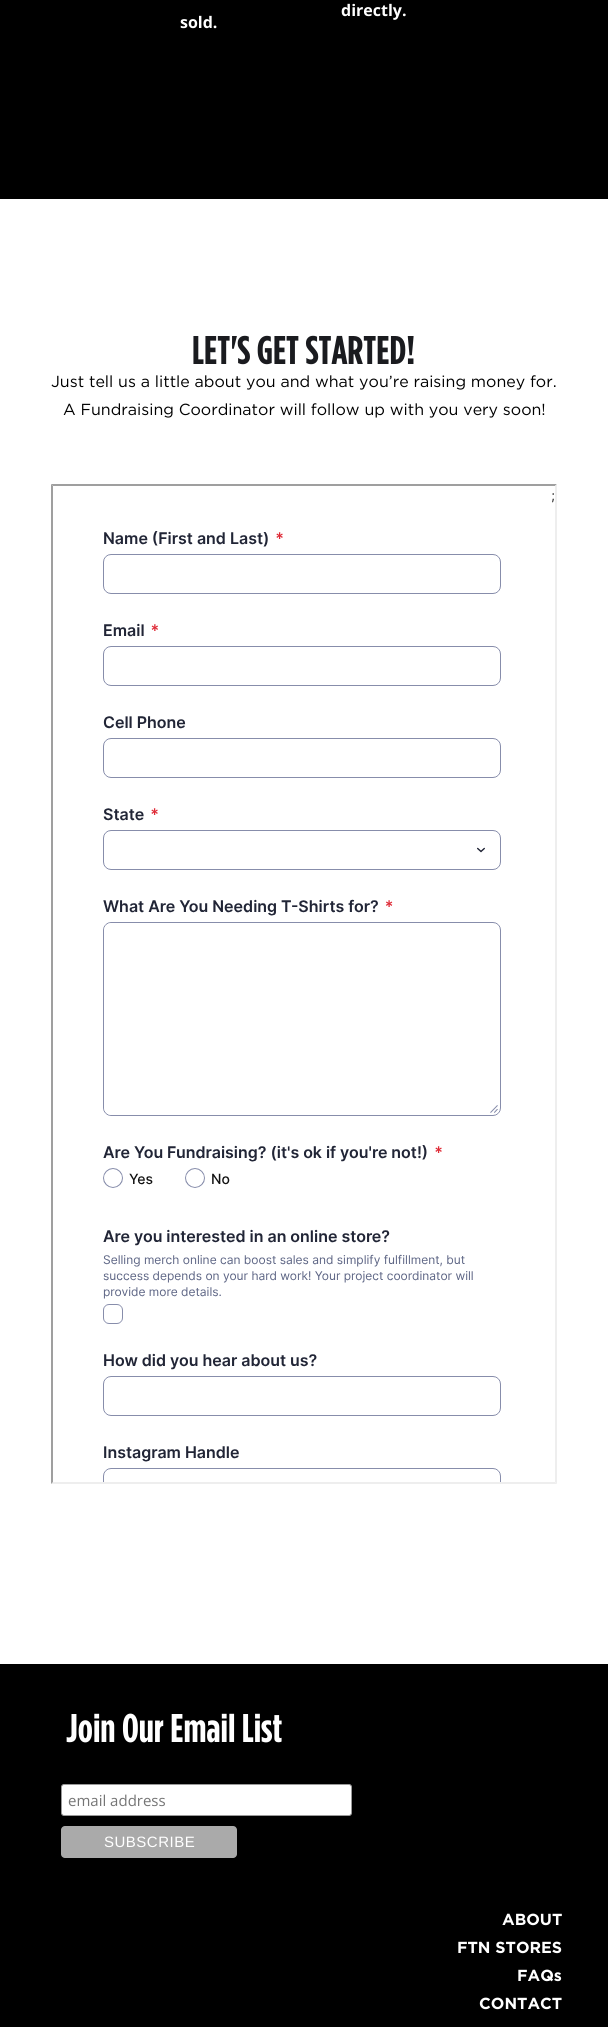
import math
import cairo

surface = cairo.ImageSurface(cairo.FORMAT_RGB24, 608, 2027)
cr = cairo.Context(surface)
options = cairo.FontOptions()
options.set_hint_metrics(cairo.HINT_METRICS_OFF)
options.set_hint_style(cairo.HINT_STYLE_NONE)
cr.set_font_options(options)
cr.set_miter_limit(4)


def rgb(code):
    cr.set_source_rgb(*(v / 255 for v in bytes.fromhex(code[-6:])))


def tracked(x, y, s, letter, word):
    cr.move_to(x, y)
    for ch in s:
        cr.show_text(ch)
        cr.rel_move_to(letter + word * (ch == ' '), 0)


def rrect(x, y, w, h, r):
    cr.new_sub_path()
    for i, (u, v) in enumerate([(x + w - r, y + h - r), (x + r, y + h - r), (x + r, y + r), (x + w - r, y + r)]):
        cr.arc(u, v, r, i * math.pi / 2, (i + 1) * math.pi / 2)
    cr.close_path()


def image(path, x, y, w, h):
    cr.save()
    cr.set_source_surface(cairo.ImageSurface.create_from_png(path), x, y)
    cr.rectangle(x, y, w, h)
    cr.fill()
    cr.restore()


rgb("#ffffff")
cr.paint()
rgb("#000000")
cr.rectangle(0, 0, 608, 199)
cr.fill()
rgb("#9f9f9f")
cr.new_path()
cr.move_to(51, 484)
cr.line_to(557, 484)
cr.line_to(555, 486)
cr.line_to(53, 486)
cr.close_path()
cr.fill()
rgb("#eeeeee")
cr.new_path()
cr.move_to(557, 484)
cr.line_to(557, 1484)
cr.line_to(555, 1482)
cr.line_to(555, 486)
cr.close_path()
cr.fill()
cr.new_path()
cr.move_to(557, 1484)
cr.line_to(51, 1484)
cr.line_to(53, 1482)
cr.line_to(555, 1482)
cr.close_path()
cr.fill()
rgb("#9f9f9f")
cr.new_path()
cr.move_to(51, 1484)
cr.line_to(51, 484)
cr.line_to(53, 486)
cr.line_to(53, 1482)
cr.close_path()
cr.fill()
image("img/1.png", 103, 493, 451, 989)
rgb("#000000")
cr.rectangle(0, 1664, 608, 363)
cr.fill()
rgb("#ffffff")
rrect(61.5, 1784.5, 290, 31, 2.5)
cr.fill_preserve()
rgb("#999999")
cr.set_line_width(1)
cr.stroke()
rgb("#aaaaaa")
rrect(61, 1826, 176, 32, 4)
cr.fill()
cr.select_font_face("Open Sans", cairo.FONT_SLANT_NORMAL, cairo.FONT_WEIGHT_BOLD)
cr.set_font_size(16)
rgb("#ffffff")
cr.move_to(341, 16)
cr.show_text("directly.")
cr.move_to(180, 28)
cr.show_text("sold.")
cr.select_font_face("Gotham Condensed", cairo.FONT_SLANT_NORMAL, cairo.FONT_WEIGHT_BOLD)
cr.set_font_size(40)
rgb("#1a1b1f")
cr.move_to(192, 364)
cr.show_text("LET'S GET STARTED!")
cr.select_font_face("Gotham")
cr.set_font_size(16)
rgb("#000000")
cr.move_to(51, 387)
cr.show_text("Just tell us a little about you and what you’re raising money for.")
cr.move_to(63, 415)
cr.show_text("A Fundraising Coordinator will follow up with you very soon!")
cr.select_font_face("Gotham Condensed", cairo.FONT_SLANT_NORMAL, cairo.FONT_WEIGHT_BOLD)
cr.set_font_size(40)
rgb("#ffffff")
cr.move_to(66, 1742)
cr.show_text("Join Our Email List")
cr.select_font_face("Open Sans")
cr.set_font_size(15)
rgb("#757575")
cr.move_to(68, 1806)
cr.show_text("email address")
cr.select_font_face("Liberation Sans")
rgb("#ffffff")
tracked(104, 1847, "SUBSCRIBE", 0.5, 0)
cr.select_font_face("Gotham", cairo.FONT_SLANT_NORMAL, cairo.FONT_WEIGHT_BOLD)
cr.set_font_size(16)
for x, y, s in [
    (502, 1925, "ABOUT"),
    (457, 1953, "FTN STORES"),
    (517, 1981, "FAQs"),
    (479, 2009, "CONTACT"),
]:
    cr.move_to(x, y)
    cr.show_text(s)
surface.write_to_png("page.png")
